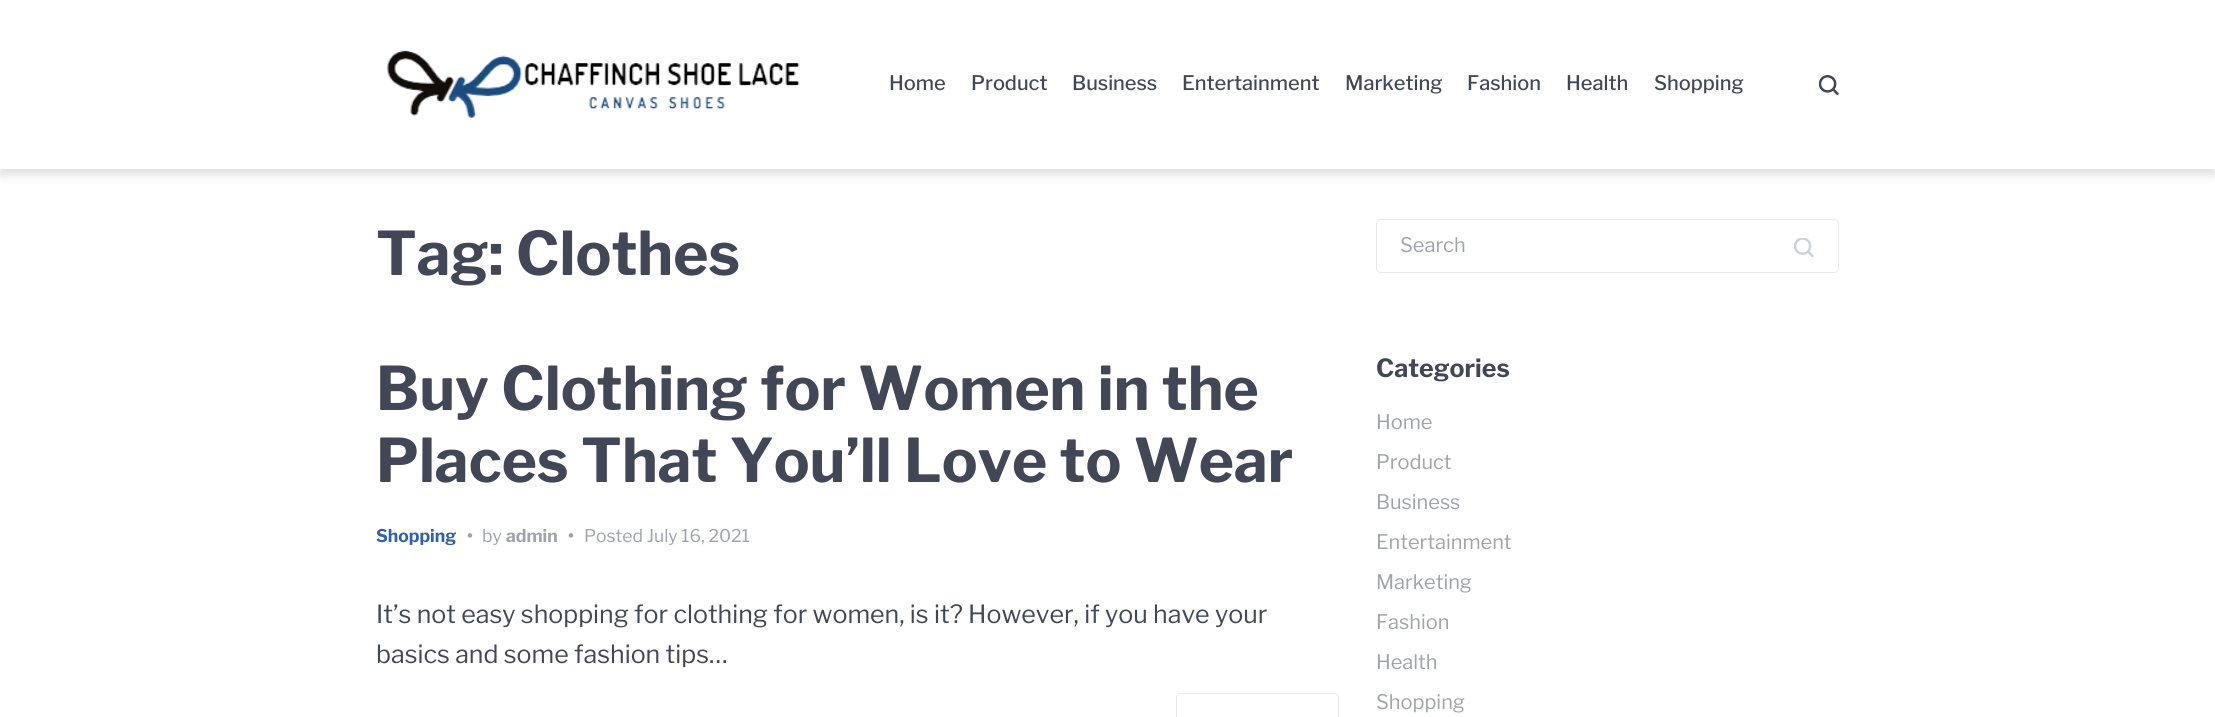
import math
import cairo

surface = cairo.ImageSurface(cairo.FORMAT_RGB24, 2215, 717)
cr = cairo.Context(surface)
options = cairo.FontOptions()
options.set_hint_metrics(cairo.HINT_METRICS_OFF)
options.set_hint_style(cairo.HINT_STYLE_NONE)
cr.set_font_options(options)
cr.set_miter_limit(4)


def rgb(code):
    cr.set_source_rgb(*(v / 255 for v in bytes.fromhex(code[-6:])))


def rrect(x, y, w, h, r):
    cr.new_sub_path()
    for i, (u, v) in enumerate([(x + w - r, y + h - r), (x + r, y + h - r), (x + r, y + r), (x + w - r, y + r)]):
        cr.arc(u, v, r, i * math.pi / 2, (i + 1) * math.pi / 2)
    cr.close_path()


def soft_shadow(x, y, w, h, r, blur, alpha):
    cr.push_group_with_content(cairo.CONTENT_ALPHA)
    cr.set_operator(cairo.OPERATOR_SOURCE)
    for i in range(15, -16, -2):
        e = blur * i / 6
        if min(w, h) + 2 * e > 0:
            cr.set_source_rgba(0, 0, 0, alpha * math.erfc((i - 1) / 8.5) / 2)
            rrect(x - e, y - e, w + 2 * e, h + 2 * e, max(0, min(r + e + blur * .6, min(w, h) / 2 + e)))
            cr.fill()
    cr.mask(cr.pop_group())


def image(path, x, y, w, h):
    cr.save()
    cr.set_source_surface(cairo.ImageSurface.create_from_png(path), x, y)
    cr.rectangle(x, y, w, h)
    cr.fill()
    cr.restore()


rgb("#ffffff")
cr.paint()
rgb("#414756")
soft_shadow(0, 5, 2215, 169, 0, 6, 0.2)
rgb("#ffffff")
cr.rectangle(0, 0, 2215, 169)
cr.fill()
image("img/1.png", 386, 50, 414, 68)
image("img/2.png", 1819, 75, 20, 20)
rrect(1176.5, 693.5, 162, 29, 4.5)
rgb("#e8e9eb")
cr.set_line_width(1)
cr.stroke()
rrect(1376.5, 219.5, 462, 53, 4.5)
cr.stroke()
image("img/3.png", 1794, 238, 20, 20)
cr.select_font_face("Libre Franklin Medium")
cr.set_font_size(20)
rgb("#414756")
for x, y, s in [
    (889, 90, "Home"),
    (971, 90, "Product"),
    (1072, 90, "Business"),
    (1182, 90, "Entertainment"),
    (1345, 90, "Marketing"),
    (1467, 90, "Fashion"),
    (1566, 90, "Health"),
    (1654, 90, "Shopping"),
]:
    cr.move_to(x, y)
    cr.show_text(s)
cr.select_font_face("Libre Franklin", cairo.FONT_SLANT_NORMAL, cairo.FONT_WEIGHT_BOLD)
cr.set_font_size(60)
for x, y, s in [
    (376, 275, "Tag: Clothes"),
    (376, 410, "Buy Clothing for Women in the"),
    (376, 482, "Places That You’ll Love to Wear"),
]:
    cr.move_to(x, y)
    cr.show_text(s)
cr.set_font_size(17.5)
rgb("#3260b1")
cr.move_to(376, 542)
cr.show_text("Shopping")
rgb("#a0a3aa")
cr.move_to(467, 542)
cr.show_text("•")
cr.select_font_face("Libre Franklin")
cr.move_to(482, 542)
cr.show_text("by")
cr.select_font_face("Libre Franklin", cairo.FONT_SLANT_NORMAL, cairo.FONT_WEIGHT_BOLD)
cr.move_to(506, 542)
cr.show_text("admin")
cr.move_to(568, 542)
cr.show_text("•")
cr.select_font_face("Libre Franklin")
cr.move_to(584, 542)
cr.show_text("Posted July 16, 2021")
cr.set_font_size(25)
rgb("#414756")
cr.move_to(376, 623)
cr.show_text("It’s not easy shopping for clothing for women, is it? However, if you have your")
cr.move_to(376, 663)
cr.show_text("basics and some fashion tips…")
cr.set_font_size(20)
rgb("#a0a3aa")
cr.move_to(1400, 252)
cr.show_text("Search")
cr.select_font_face("Libre Franklin", cairo.FONT_SLANT_NORMAL, cairo.FONT_WEIGHT_BOLD)
cr.set_font_size(25)
rgb("#414756")
cr.move_to(1376, 377)
cr.show_text("Categories")
cr.select_font_face("Libre Franklin")
cr.set_font_size(20)
rgb("#a0a3aa")
for x, y, s in [
    (1376, 429, "Home"),
    (1376, 469, "Product"),
    (1376, 509, "Business"),
    (1376, 549, "Entertainment"),
    (1376, 589, "Marketing"),
    (1376, 629, "Fashion"),
    (1376, 669, "Health"),
    (1376, 709, "Shopping"),
]:
    cr.move_to(x, y)
    cr.show_text(s)
surface.write_to_png("page.png")
